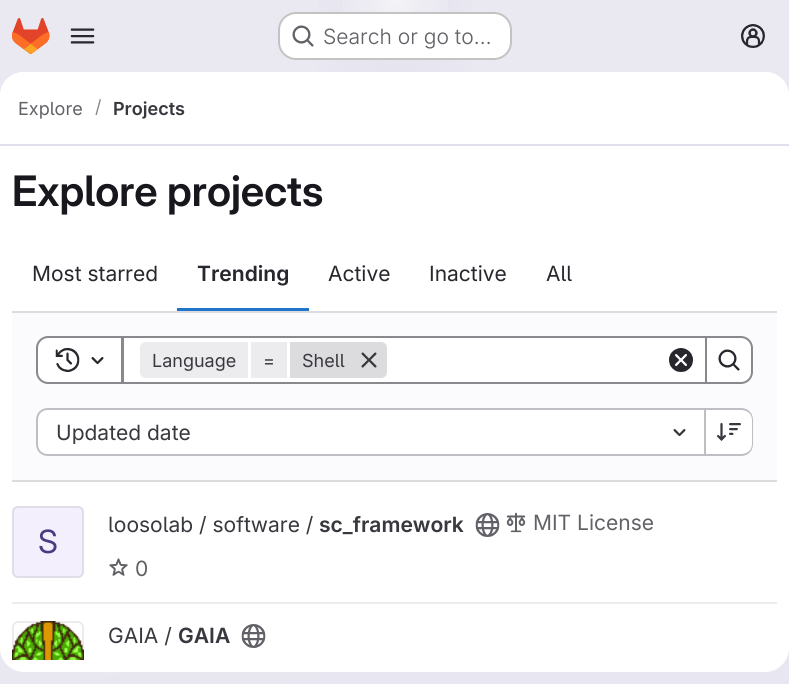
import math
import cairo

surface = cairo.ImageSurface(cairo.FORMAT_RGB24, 789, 684)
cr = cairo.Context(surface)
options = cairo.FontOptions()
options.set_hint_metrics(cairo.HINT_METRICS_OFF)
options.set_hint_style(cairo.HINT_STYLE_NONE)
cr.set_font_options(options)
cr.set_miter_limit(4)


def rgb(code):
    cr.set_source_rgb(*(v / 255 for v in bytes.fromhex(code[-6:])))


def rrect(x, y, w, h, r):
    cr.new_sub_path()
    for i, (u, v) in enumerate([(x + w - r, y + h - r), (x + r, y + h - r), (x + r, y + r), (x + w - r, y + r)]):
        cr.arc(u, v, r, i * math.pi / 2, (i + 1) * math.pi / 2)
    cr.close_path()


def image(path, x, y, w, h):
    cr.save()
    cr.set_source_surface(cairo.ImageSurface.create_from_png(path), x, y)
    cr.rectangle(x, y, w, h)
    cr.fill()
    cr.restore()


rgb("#ffffff")
cr.paint()
gradient = cairo.LinearGradient(465, 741, 324, -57)
gradient.add_color_stop_rgba(0, 0.91, 0.902, 0.941, 1)
gradient.add_color_stop_rgba(0.7, 0.918, 0.914, 0.949, 1)
cr.set_source(gradient)
cr.rectangle(0, 0, 789, 684)
cr.fill()
gradient = cairo.RadialGradient(0, 0, 0, 0, 0, 1)
gradient.set_matrix(cairo.Matrix(1 / 395, 0, 0, 1 / 684, -1 * 395 / 395, -1 * 0 / 684))
gradient.add_color_stop_rgba(0, 0.894, 0.886, 0.929, 1)
gradient.add_color_stop_rgba(0.27, 0.894, 0.886, 0.929, 0)
cr.set_source(gradient)
cr.rectangle(318, 0, 154, 72)
cr.fill()
gradient = cairo.RadialGradient(0, 0, 0, 0, 0, 1)
gradient.set_matrix(cairo.Matrix(1 / 395, 0, 0, 1 / 684, -1 * 395 / 395, -1 * 0 / 684))
gradient.add_color_stop_rgba(0, 0.894, 0.886, 0.925, 1)
gradient.add_color_stop_rgba(0.19, 0.894, 0.886, 0.925, 0)
cr.set_source(gradient)
cr.rectangle(367, 0, 56, 53)
cr.fill()
gradient = cairo.RadialGradient(395, 0, 0, 395, 0, 790)
gradient.add_color_stop_rgba(0, 1, 1, 1, 0.6)
gradient.add_color_stop_rgba(0.08, 1, 1, 1, 0)
cr.set_source(gradient)
cr.rectangle(342, 0, 106, 53)
cr.fill()
image("img/1.png", 12, 18, 38, 36)
image("img/2.png", 70, 28, 25, 16)
rgb("#ffffff")
rrect(278, 12, 234, 48, 18)
cr.fill()
rrect(279, 13, 232, 46, 17)
cr.set_source_rgba(0.02, 0.02, 0.024, 0.24)
cr.stroke()
image("img/3.png", 292, 25, 22, 22)
image("img/4.png", 741, 24, 24, 24)
rgb("#ffffff")
rrect(0, 72, 789, 600, 24)
cr.fill()
cr.new_path()
cr.move_to(24, 72)
cr.line_to(765, 72)
cr.curve_to(778.5, 72, 789, 82.5, 789, 96)
cr.line_to(789, 146)
cr.line_to(0, 146)
cr.line_to(0, 96)
cr.curve_to(0, 82.5, 10.5, 72, 24, 72)
cr.close_path()
cr.fill()
for x, y, w, h, color in [
    (0, 144, 789, 2, "#e1dfec"),
    (177, 308, 132, 3, "#1f75cb"),
    (12, 313, 765, 167, "#fbfafd"),
    (12, 311, 765, 2, "#dcdcde"),
    (12, 480, 765, 2, "#dcdcde"),
]:
    rgb(color)
    cr.rectangle(x, y, w, h)
    cr.fill()
rgb("#ffffff")
cr.rectangle(123, 337, 583, 46)
cr.fill_preserve()
rgb("#89888d")
cr.stroke()
rgb("#ffffff")
cr.new_path()
cr.move_to(48, 337)
cr.line_to(122, 337)
cr.line_to(122, 383)
cr.line_to(48, 383)
cr.curve_to(42, 383, 37, 378, 37, 372)
cr.line_to(37, 348)
cr.curve_to(37, 342, 42, 337, 48, 337)
cr.close_path()
cr.fill_preserve()
rgb("#89888d")
cr.stroke()
image("img/5.png", 55, 348, 25, 24)
image("img/6.png", 91, 357, 13, 8)
rgb("#ececef")
cr.new_path()
cr.move_to(146, 342)
cr.line_to(248, 342)
cr.line_to(248, 378)
cr.line_to(146, 378)
cr.curve_to(142.5, 378, 140, 375.5, 140, 372)
cr.line_to(140, 348)
cr.curve_to(140, 344.5, 142.5, 342, 146, 342)
cr.close_path()
cr.fill()
cr.rectangle(251, 342, 36, 36)
cr.fill()
rgb("#dcdcde")
cr.new_path()
cr.move_to(290, 342)
cr.line_to(381, 342)
cr.curve_to(384.5, 342, 387, 344.5, 387, 348)
cr.line_to(387, 372)
cr.curve_to(387, 375.5, 384.5, 378, 381, 378)
cr.line_to(290, 378)
cr.close_path()
cr.fill()
image("img/7.png", 361, 352, 16, 16)
image("img/8.png", 669, 348, 24, 24)
rgb("#ffffff")
cr.new_path()
cr.move_to(706, 337)
cr.line_to(741, 337)
cr.curve_to(747, 337, 752, 342, 752, 348)
cr.line_to(752, 372)
cr.curve_to(752, 378, 747, 383, 741, 383)
cr.line_to(706, 383)
cr.close_path()
cr.fill_preserve()
rgb("#89888d")
cr.stroke()
image("img/9.png", 718, 349, 22, 22)
rgb("#ffffff")
cr.new_path()
cr.move_to(49, 410)
cr.line_to(704, 410)
cr.line_to(704, 455)
cr.line_to(49, 455)
cr.curve_to(43, 455, 38, 450, 38, 444)
cr.line_to(38, 421)
cr.curve_to(38, 415, 43, 410, 49, 410)
cr.close_path()
cr.fill()
rgb("#bfbfc3")
cr.set_fill_rule(cairo.FILL_RULE_EVEN_ODD)
cr.new_path()
cr.move_to(48, 408)
cr.line_to(704, 408)
cr.line_to(704, 456)
cr.line_to(48, 456)
cr.curve_to(41, 456, 36, 451, 36, 444)
cr.line_to(36, 420)
cr.curve_to(36, 413, 41, 408, 48, 408)
cr.close_path()
cr.move_to(48, 410)
cr.line_to(704, 410)
cr.line_to(704, 454)
cr.line_to(48, 454)
cr.curve_to(42, 454, 38, 450, 38, 444)
cr.line_to(38, 420)
cr.curve_to(38, 414, 42, 410, 48, 410)
cr.close_path()
cr.fill()
image("img/10.png", 673, 429, 13, 8)
rgb("#ffffff")
cr.new_path()
cr.move_to(705, 410)
cr.line_to(741, 410)
cr.curve_to(747, 410, 752, 415, 752, 421)
cr.line_to(752, 444)
cr.curve_to(752, 450, 747, 455, 741, 455)
cr.line_to(705, 455)
cr.close_path()
cr.fill()
rgb("#bfbfc3")
cr.new_path()
cr.move_to(705, 408)
cr.line_to(741, 408)
cr.curve_to(748, 408, 753, 413, 753, 420)
cr.line_to(753, 444)
cr.curve_to(753, 451, 748, 456, 741, 456)
cr.line_to(705, 456)
cr.close_path()
cr.move_to(705, 410)
cr.line_to(741, 410)
cr.curve_to(747, 410, 752, 414, 752, 420)
cr.line_to(752, 444)
cr.curve_to(752, 450, 747, 454, 741, 454)
cr.line_to(705, 454)
cr.close_path()
cr.fill()
cr.rectangle(704, 408, 2, 48)
cr.fill()
image("img/11.png", 717, 423, 24, 18)
rgb("#ececef")
cr.rectangle(12, 602, 765, 2)
cr.fill()
rgb("#f3effc")
rrect(12, 506, 72, 72, 6)
cr.fill()
rrect(13, 507, 70, 70, 5)
cr.set_source_rgba(0.02, 0.02, 0.024, 0.08)
cr.stroke()
image("img/12.png", 475, 513, 25, 24)
image("img/13.png", 506, 512, 20, 21)
image("img/14.png", 109, 558, 19, 18)
image("img/15.png", 12, 621, 72, 39)
cr.save()
cr.set_fill_rule(cairo.FILL_RULE_WINDING)
cr.rectangle(0, 146, 789, 514)
cr.clip()
cr.new_path()
cr.move_to(18, 621)
cr.curve_to(15, 621, 12, 624, 12, 627)
cr.line_to(12, 669)
cr.line_to(14, 670)
cr.line_to(14, 627)
cr.curve_to(14, 625, 16, 623, 18, 623)
cr.line_to(78, 623)
cr.curve_to(80, 623, 82, 625, 82, 627)
cr.line_to(82, 672)
cr.line_to(84, 672)
cr.line_to(84, 627)
cr.curve_to(84, 624, 81, 621, 78, 621)
cr.close_path()
cr.fill()
cr.restore()
image("img/16.png", 241, 624, 25, 24)
cr.select_font_face("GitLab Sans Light")
cr.set_font_size(21)
rgb("#626168")
cr.move_to(323, 44)
cr.show_text("Search or go to…")
cr.select_font_face("GitLab Sans")
cr.set_font_size(18)
cr.move_to(18, 115)
cr.show_text("Explore")
rgb("#89888d")
cr.move_to(95, 113)
cr.show_text("/")
cr.select_font_face("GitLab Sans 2 SemiBold")
rgb("#3a383f")
cr.move_to(113, 115)
cr.show_text("Projects")
cr.select_font_face("GitLab Sans SemiBold")
cr.set_font_size(42)
rgb("#18171d")
cr.move_to(12, 206)
cr.show_text("Explore projects")
cr.select_font_face("GitLab Sans")
cr.set_font_size(21)
rgb("#28272d")
cr.move_to(32, 281)
cr.show_text("Most starred")
cr.select_font_face("GitLab Sans 2 SemiBold")
cr.move_to(197, 281)
cr.show_text("Trending")
cr.select_font_face("GitLab Sans")
for x, y, s in [
    (328, 281, "Active"),
    (429, 281, "Inactive"),
    (546, 281, "All"),
]:
    cr.move_to(x, y)
    cr.show_text(s)
cr.set_font_size(18)
rgb("#3a383f")
for x, y, s in [
    (152, 367, "Language"),
    (263, 367, "="),
    (302, 367, "Shell"),
]:
    cr.move_to(x, y)
    cr.show_text(s)
cr.save()
cr.set_fill_rule(cairo.FILL_RULE_WINDING)
cr.rectangle(56, 420, 135, 24)
cr.clip()
cr.set_font_size(21)
cr.move_to(56, 440)
cr.show_text("Updated date")
cr.restore()
cr.select_font_face("GitLab Sans 2")
cr.set_font_size(32)
rgb("#493c83")
cr.move_to(38, 553)
cr.show_text("S")
cr.select_font_face("GitLab Sans")
cr.set_font_size(21)
rgb("#3a383f")
cr.move_to(108, 532)
cr.show_text("loosolab / software /")
cr.select_font_face("GitLab Sans 2 SemiBold")
cr.move_to(319, 532)
cr.show_text("sc_framework")
cr.select_font_face("GitLab Sans")
rgb("#626168")
cr.move_to(533, 530)
cr.show_text("MIT License")
cr.move_to(135, 576)
cr.show_text("0")
rgb("#3a383f")
cr.move_to(108, 643)
cr.show_text("GAIA /")
cr.select_font_face("GitLab Sans 2 SemiBold")
cr.move_to(178, 643)
cr.show_text("GAIA")
surface.write_to_png("page.png")
